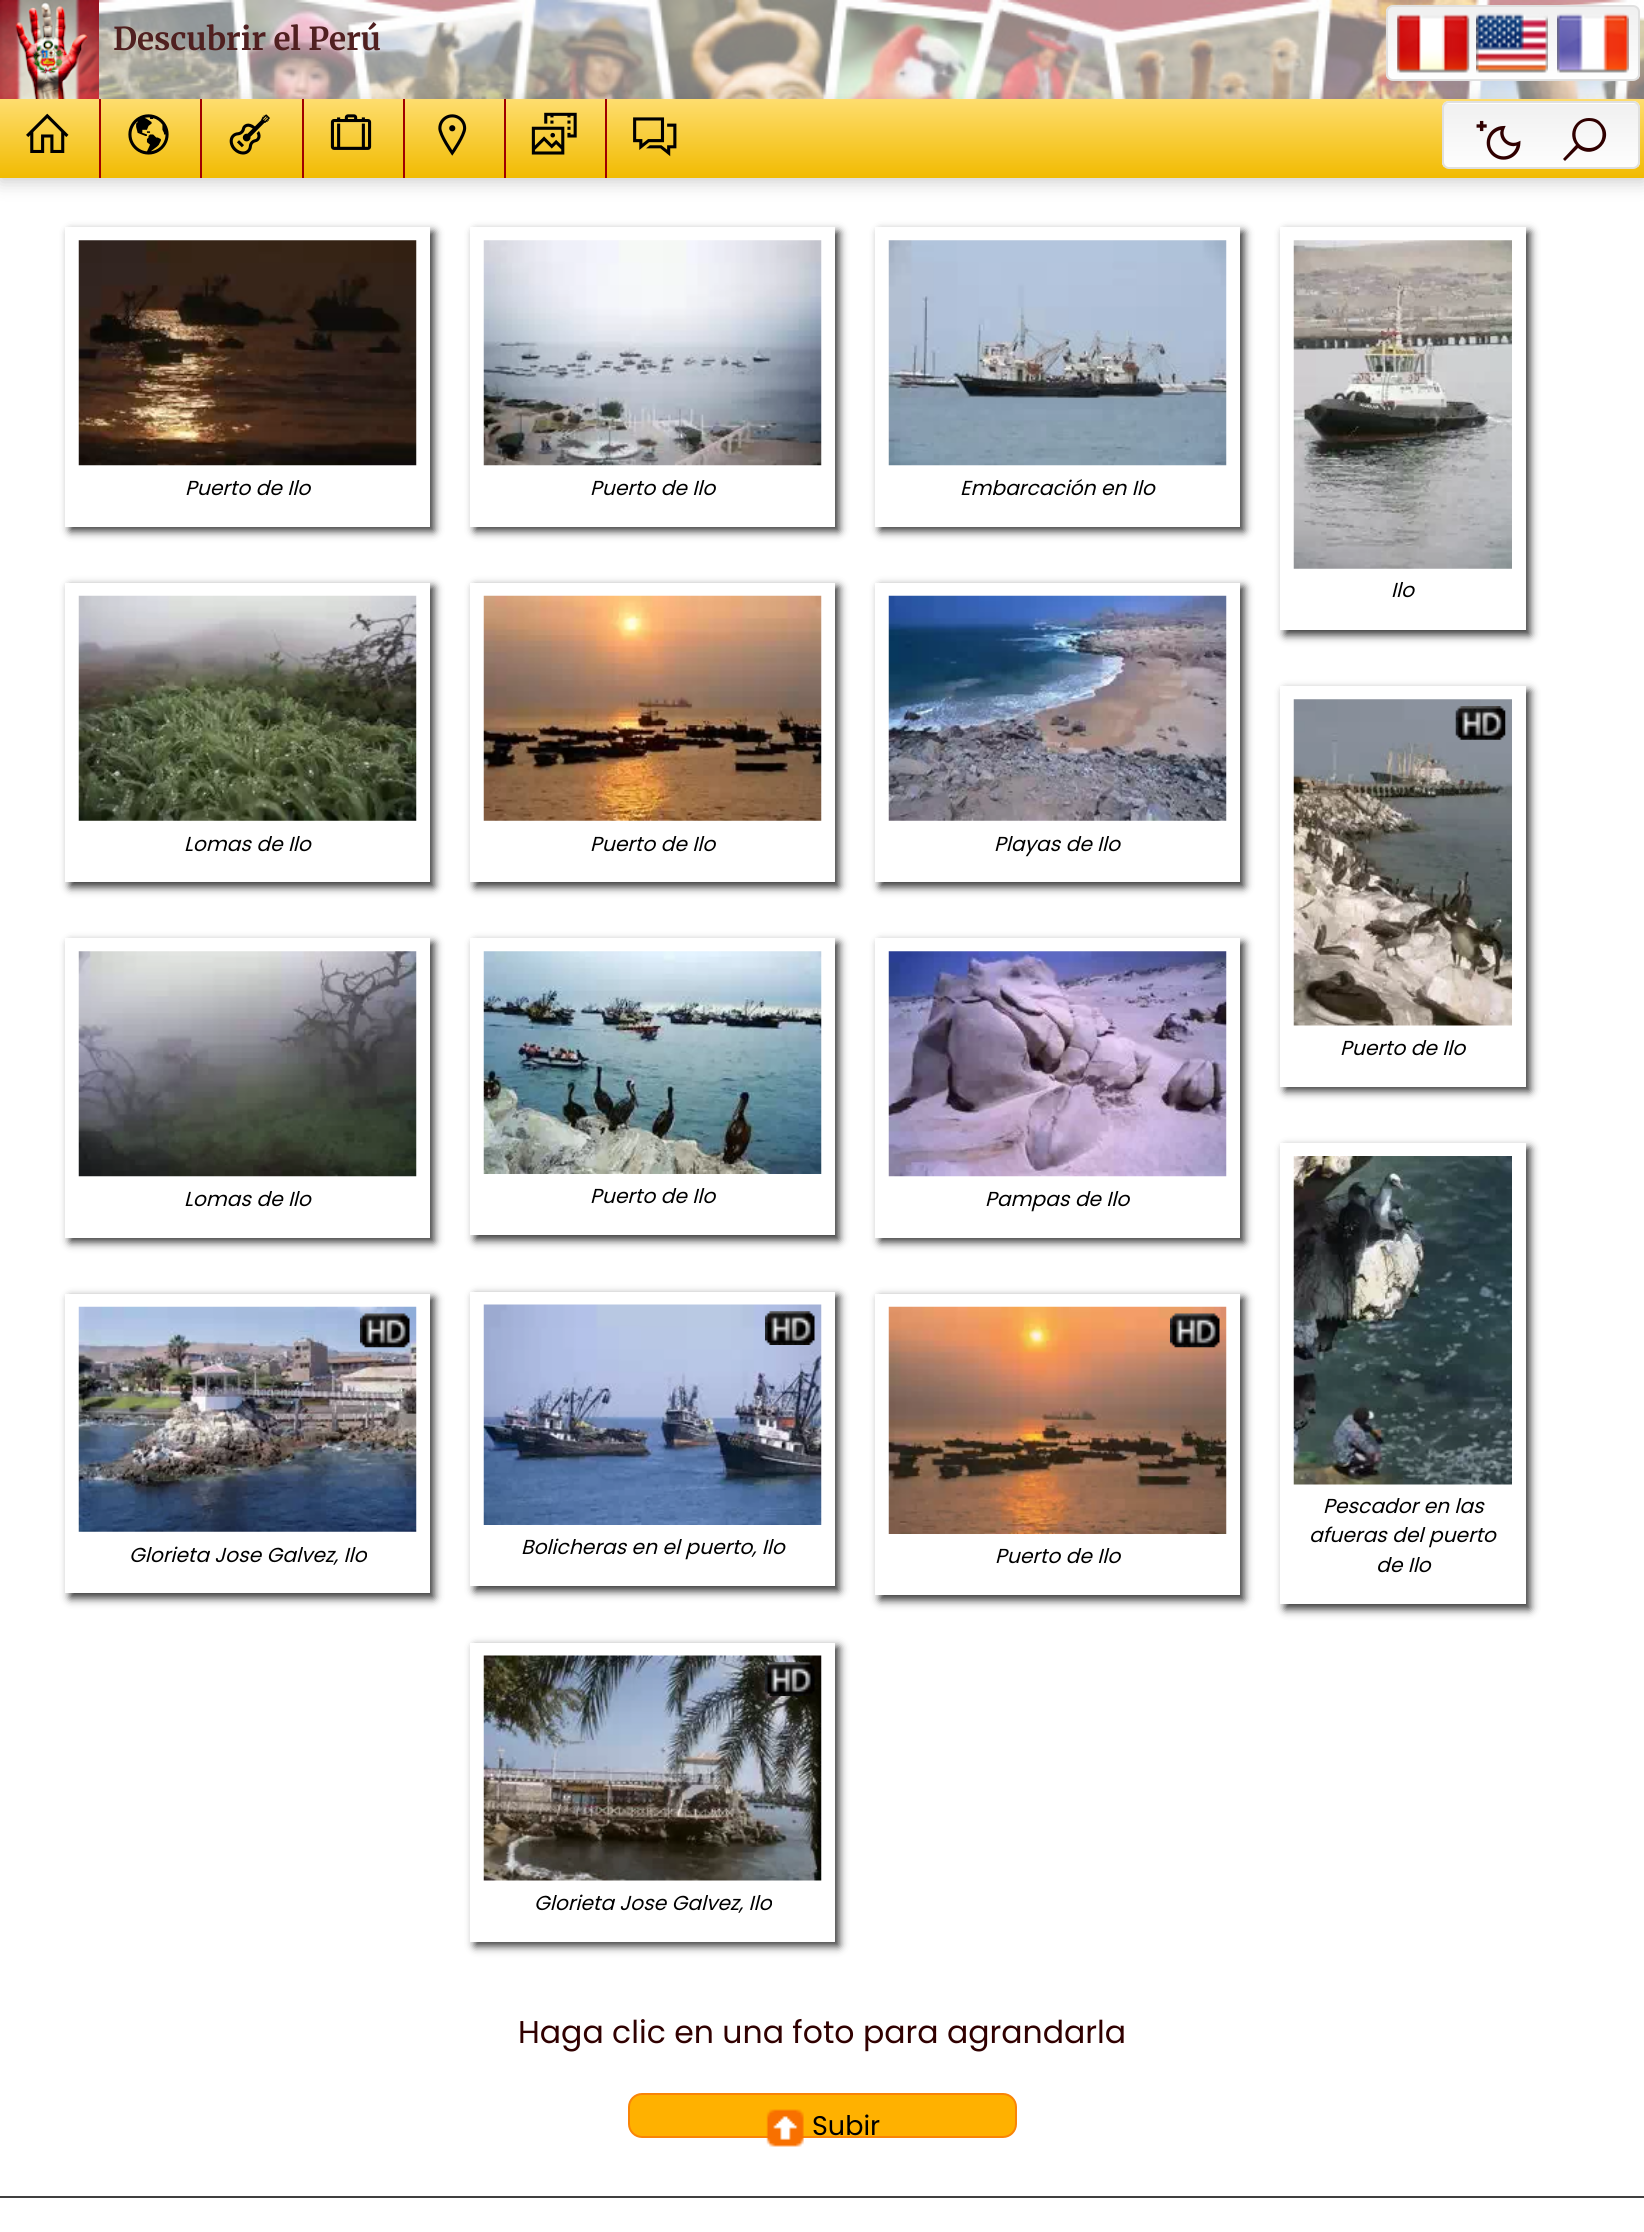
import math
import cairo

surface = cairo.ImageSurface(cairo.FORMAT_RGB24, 1644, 2232)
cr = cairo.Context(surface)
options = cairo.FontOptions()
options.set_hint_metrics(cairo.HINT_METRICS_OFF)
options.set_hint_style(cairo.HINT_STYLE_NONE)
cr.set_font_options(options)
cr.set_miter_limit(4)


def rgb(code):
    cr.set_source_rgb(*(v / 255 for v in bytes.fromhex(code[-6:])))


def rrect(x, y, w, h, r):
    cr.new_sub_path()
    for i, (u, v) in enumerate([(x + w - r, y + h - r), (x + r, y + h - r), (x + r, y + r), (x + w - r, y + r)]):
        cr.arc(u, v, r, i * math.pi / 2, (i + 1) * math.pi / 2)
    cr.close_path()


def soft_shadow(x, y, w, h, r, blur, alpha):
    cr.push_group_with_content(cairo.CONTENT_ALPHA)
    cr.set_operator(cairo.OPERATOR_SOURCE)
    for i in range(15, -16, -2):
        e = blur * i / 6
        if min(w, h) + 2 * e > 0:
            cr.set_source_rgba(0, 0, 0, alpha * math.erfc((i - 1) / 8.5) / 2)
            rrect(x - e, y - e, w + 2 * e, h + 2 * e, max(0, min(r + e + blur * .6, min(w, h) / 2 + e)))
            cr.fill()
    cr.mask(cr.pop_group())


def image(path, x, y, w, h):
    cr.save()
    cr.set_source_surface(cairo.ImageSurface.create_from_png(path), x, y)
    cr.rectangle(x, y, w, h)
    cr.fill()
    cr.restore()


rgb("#ffffff")
cr.paint()
image("img/2.png", 99, 0, 1545, 99)
rgb("#000000")
soft_shadow(0, 104, 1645, 78, 0, 9, 0.2)
image("img/1.png", 0, 0, 99, 99)
cr.save()
rrect(1386, 5, 254, 76, 7)
cr.clip()
gradient = cairo.LinearGradient(1513, 6.7, 1513, 79)
gradient.add_color_stop_rgba(0, 0.941, 0.941, 0.941, 1)
gradient.add_color_stop_rgba(1, 0.996, 0.996, 0.996, 1)
cr.set_source(gradient)
cr.rectangle(1386, 7, 254, 72)
cr.fill()
cr.restore()
rrect(1387, 6, 252, 74, 6)
rgb("#e0e0e0")
cr.stroke()
image("img/3.png", 1397, 14, 73, 59)
image("img/4.png", 1476, 13, 72, 60)
image("img/5.png", 1557, 13, 72, 60)
gradient = cairo.LinearGradient(822, 99, 822, 178)
gradient.add_color_stop_rgba(0, 0.996, 0.867, 0.435, 1)
gradient.add_color_stop_rgba(1, 0.945, 0.733, 0.004, 1)
cr.set_source(gradient)
cr.rectangle(0, 99, 1644, 79)
cr.fill()
image("img/6.png", 26, 113, 43, 40)
rgb("#a00000")
cr.rectangle(99, 99, 2, 79)
cr.fill()
image("img/7.png", 128, 114, 41, 41)
cr.rectangle(200, 99, 2, 79)
cr.fill()
image("img/8.png", 229, 114, 41, 41)
cr.rectangle(302, 99, 2, 79)
cr.fill()
image("img/9.png", 330, 114, 42, 36)
cr.rectangle(403, 99, 2, 79)
cr.fill()
image("img/10.png", 438, 114, 29, 42)
cr.rectangle(504, 99, 2, 79)
cr.fill()
image("img/11.png", 531, 112, 46, 43)
cr.rectangle(605, 99, 2, 79)
cr.fill()
image("img/12.png", 633, 117, 44, 40)
cr.save()
rrect(1442, 101, 198, 68, 7)
cr.clip()
gradient = cairo.LinearGradient(1541, 40, 1541, 104)
gradient.add_color_stop_rgba(0, 0.941, 0.941, 0.941, 1)
gradient.add_color_stop_rgba(1, 0.996, 0.996, 0.996, 1)
cr.set_source(gradient)
cr.rectangle(1442, 101, 198, 3)
cr.fill()
gradient = cairo.LinearGradient(1541, 103, 1541, 167)
gradient.add_color_stop_rgba(0, 0.941, 0.941, 0.941, 1)
gradient.add_color_stop_rgba(1, 0.996, 0.996, 0.996, 1)
cr.set_source(gradient)
cr.rectangle(1442, 104, 198, 63)
cr.fill()
cr.restore()
rrect(1443, 102, 196, 66, 6)
rgb("#e0e0e0")
cr.stroke()
image("img/13.png", 1476, 120, 45, 40)
rgb("#300000")
cr.new_path()
cr.move_to(1589, 118)
cr.curve_to(1575, 118, 1567, 134, 1576, 145)
cr.line_to(1563, 159)
cr.line_to(1565, 161)
cr.line_to(1578, 148)
cr.curve_to(1595, 161, 1616, 138, 1601, 123)
cr.curve_to(1598, 119, 1593, 118, 1589, 118)
cr.close_path()
cr.move_to(1589, 121)
cr.curve_to(1607, 121, 1607, 148, 1589, 148)
cr.curve_to(1571, 148, 1571, 121, 1589, 121)
cr.close_path()
cr.fill()
rgb("#333333")
soft_shadow(70, 232, 364, 299, 0, 4.5, 1)
rgb("#ffffff")
cr.rectangle(65, 227, 365, 300)
cr.fill()
image("img/14.png", 78, 240, 339, 226)
rgb("#333333")
soft_shadow(475, 232, 364, 299, 0, 4.5, 1)
rgb("#ffffff")
cr.rectangle(470, 227, 365, 300)
cr.fill()
image("img/15.png", 483, 240, 339, 226)
rgb("#333333")
soft_shadow(880, 232, 364, 299, 0, 4.5, 1)
rgb("#ffffff")
cr.rectangle(875, 227, 365, 300)
cr.fill()
image("img/16.png", 888, 240, 339, 226)
rgb("#333333")
soft_shadow(1285, 232, 245, 403, 0, 4.5, 1)
rgb("#ffffff")
cr.rectangle(1280, 227, 246, 403)
cr.fill()
image("img/17.png", 1293, 240, 219, 329)
rgb("#333333")
soft_shadow(70, 587, 364, 300, 0, 4.5, 1)
rgb("#ffffff")
cr.rectangle(65, 583, 365, 299)
cr.fill()
image("img/18.png", 78, 595, 339, 226)
rgb("#333333")
soft_shadow(475, 587, 364, 300, 0, 4.5, 1)
rgb("#ffffff")
cr.rectangle(470, 583, 365, 299)
cr.fill()
image("img/19.png", 483, 595, 339, 226)
rgb("#333333")
soft_shadow(880, 587, 364, 300, 0, 4.5, 1)
rgb("#ffffff")
cr.rectangle(875, 583, 365, 299)
cr.fill()
image("img/20.png", 888, 595, 339, 226)
rgb("#333333")
soft_shadow(1285, 691, 245, 400, 0, 4.5, 1)
rgb("#ffffff")
cr.rectangle(1280, 686, 246, 401)
cr.fill()
image("img/21.png", 1293, 699, 219, 327)
image("img/22.png", 1455, 706, 51, 34)
rgb("#333333")
soft_shadow(70, 943, 364, 299, 0, 4.5, 1)
rgb("#ffffff")
cr.rectangle(65, 938, 365, 300)
cr.fill()
image("img/23.png", 78, 951, 339, 226)
rgb("#333333")
soft_shadow(475, 943, 364, 297, 0, 4.5, 1)
rgb("#ffffff")
cr.rectangle(470, 938, 365, 297)
cr.fill()
image("img/24.png", 483, 951, 339, 223)
rgb("#333333")
soft_shadow(880, 943, 364, 299, 0, 4.5, 1)
rgb("#ffffff")
cr.rectangle(875, 938, 365, 300)
cr.fill()
image("img/25.png", 888, 951, 339, 226)
rgb("#333333")
soft_shadow(70, 1298, 364, 300, 0, 4.5, 1)
rgb("#ffffff")
cr.rectangle(65, 1294, 365, 299)
cr.fill()
image("img/26.png", 78, 1306, 339, 226)
image("img/27.png", 360, 1313, 50, 35)
rgb("#333333")
soft_shadow(475, 1296, 364, 295, 0, 4.5, 1)
rgb("#ffffff")
cr.rectangle(470, 1292, 365, 294)
cr.fill()
image("img/28.png", 483, 1304, 339, 221)
image("img/29.png", 765, 1311, 50, 34)
rgb("#333333")
soft_shadow(880, 1298, 364, 302, 0, 4.5, 1)
rgb("#ffffff")
cr.rectangle(875, 1294, 365, 301)
cr.fill()
image("img/30.png", 888, 1306, 339, 228)
image("img/31.png", 1170, 1313, 50, 35)
rgb("#333333")
soft_shadow(1285, 1148, 245, 461, 0, 4.5, 1)
rgb("#ffffff")
cr.rectangle(1280, 1143, 246, 461)
cr.fill()
image("img/32.png", 1293, 1156, 219, 329)
rgb("#333333")
soft_shadow(475, 1647, 364, 299, 0, 4.5, 1)
rgb("#ffffff")
cr.rectangle(470, 1643, 365, 299)
cr.fill()
image("img/33.png", 483, 1655, 339, 226)
image("img/34.png", 765, 1662, 50, 34)
rgb("#ffb100")
rrect(629, 2094, 387, 43, 13)
cr.fill_preserve()
rgb("#f98407")
cr.stroke()
image("img/35.png", 766, 2109, 38, 38)
rgb("#404040")
cr.rectangle(0, 2196, 1644, 2)
cr.fill()
cr.select_font_face("Merriweather", cairo.FONT_SLANT_NORMAL, cairo.FONT_WEIGHT_BOLD)
cr.set_font_size(31.5)
rgb("#502020")
cr.move_to(113, 50)
cr.show_text("Descubrir el Perú")
cr.select_font_face("Poppins", cairo.FONT_SLANT_ITALIC)
cr.set_font_size(20.25)
rgb("#000000")
for x, y, s in [
    (185, 495, "Puerto de Ilo"),
    (590, 495, "Puerto de Ilo"),
    (960, 495, "Embarcación en Ilo"),
    (1391, 597, "Ilo"),
    (184, 851, "Lomas de Ilo"),
    (590, 851, "Puerto de Ilo"),
    (994, 851, "Playas de Ilo"),
    (1340, 1055, "Puerto de Ilo"),
    (184, 1206, "Lomas de Ilo"),
    (590, 1203, "Puerto de Ilo"),
    (985, 1206, "Pampas de Ilo"),
    (129, 1562, "Glorieta Jose Galvez, Ilo"),
    (521, 1554, "Bolicheras en el puerto, Ilo"),
    (995, 1563, "Puerto de Ilo"),
    (1323, 1513, "Pescador en las"),
    (1309, 1542, "afueras del puerto"),
    (1376, 1572, "de Ilo"),
    (534, 1910, "Glorieta Jose Galvez, Ilo"),
]:
    cr.move_to(x, y)
    cr.show_text(s)
cr.select_font_face("Poppins")
cr.set_font_size(31.5)
rgb("#300000")
cr.move_to(518, 2043)
cr.show_text("Haga clic en una foto para agrandarla")
cr.set_font_size(27)
rgb("#000000")
cr.move_to(812, 2135)
cr.show_text("Subir")
surface.write_to_png("page.png")
